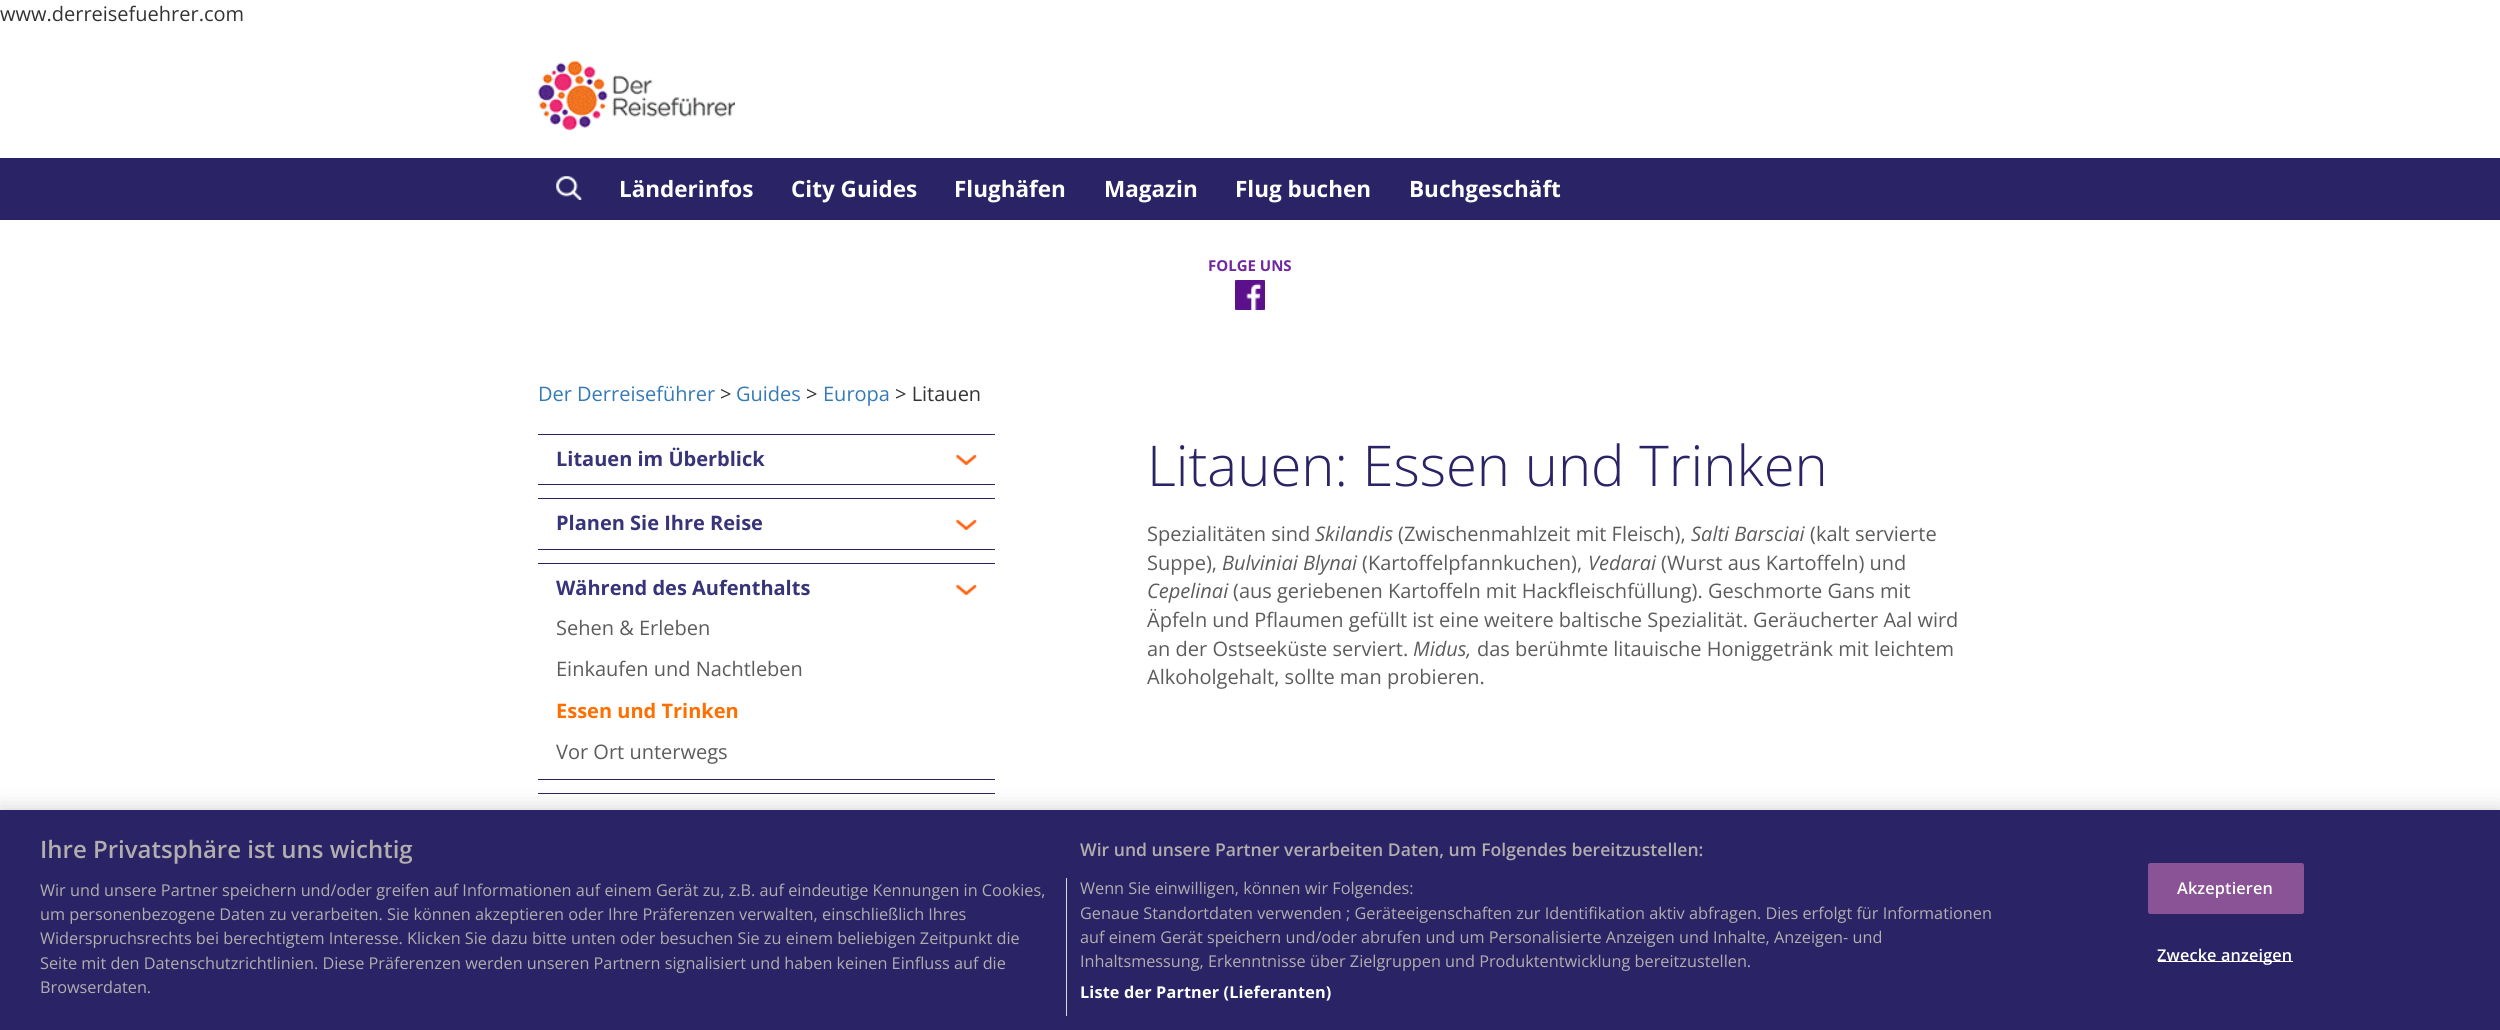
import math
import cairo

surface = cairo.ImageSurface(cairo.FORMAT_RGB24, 2500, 1030)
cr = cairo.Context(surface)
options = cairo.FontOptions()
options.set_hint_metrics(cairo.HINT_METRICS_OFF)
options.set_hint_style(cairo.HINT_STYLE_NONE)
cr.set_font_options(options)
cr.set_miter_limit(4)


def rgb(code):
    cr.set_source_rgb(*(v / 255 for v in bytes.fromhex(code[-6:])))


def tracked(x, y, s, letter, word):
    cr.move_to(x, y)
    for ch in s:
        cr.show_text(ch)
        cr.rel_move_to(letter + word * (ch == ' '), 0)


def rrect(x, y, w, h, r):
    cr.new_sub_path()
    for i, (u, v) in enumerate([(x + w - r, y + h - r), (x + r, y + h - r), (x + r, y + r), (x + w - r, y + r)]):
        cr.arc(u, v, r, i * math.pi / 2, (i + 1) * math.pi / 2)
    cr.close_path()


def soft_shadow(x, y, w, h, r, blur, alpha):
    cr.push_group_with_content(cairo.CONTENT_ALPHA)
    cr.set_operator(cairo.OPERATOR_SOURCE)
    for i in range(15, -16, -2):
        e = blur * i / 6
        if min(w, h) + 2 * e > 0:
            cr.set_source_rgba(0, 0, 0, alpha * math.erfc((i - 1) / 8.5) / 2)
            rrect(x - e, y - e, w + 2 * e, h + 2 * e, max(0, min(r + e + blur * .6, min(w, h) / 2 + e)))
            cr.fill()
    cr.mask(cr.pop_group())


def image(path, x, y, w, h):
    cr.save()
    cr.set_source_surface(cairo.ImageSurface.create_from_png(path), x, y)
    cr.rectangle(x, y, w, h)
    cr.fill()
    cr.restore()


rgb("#ffffff")
cr.paint()
image("img/1.png", 537, 60, 198, 71)
rgb("#2a2466")
cr.rectangle(0, 158, 2500, 62)
cr.fill()
image("img/2.png", 556, 176, 26, 24)
image("img/3.png", 1235, 280, 30, 30)
cr.rectangle(538, 434, 457, 1)
cr.fill()
cr.rectangle(538, 484, 457, 1)
cr.fill()
image("img/4.png", 956, 454, 21, 11)
cr.rectangle(538, 498, 457, 1)
cr.fill()
cr.rectangle(538, 549, 457, 1)
cr.fill()
image("img/4.png", 956, 519, 21, 11)
cr.rectangle(538, 563, 457, 1)
cr.fill()
cr.rectangle(538, 779, 457, 1)
cr.fill()
image("img/5.png", 956, 584, 21, 11)
cr.rectangle(538, 793, 457, 1)
cr.fill()
rgb("#000000")
soft_shadow(0, 810, 2500, 220, 0, 11, 0.2)
rgb("#2a2466")
cr.rectangle(0, 810, 2500, 220)
cr.fill()
rgb("#d8d8d8")
cr.rectangle(1066, 878, 1, 138)
cr.fill()
rgb("#895396")
rrect(2148.5, 863.5, 155, 50, 2)
cr.fill_preserve()
cr.set_line_width(1)
cr.stroke()
rgb("#ffffff")
cr.rectangle(2158, 961, 135, 1)
cr.fill()
cr.select_font_face("Open Sans")
cr.set_font_size(20)
rgb("#333333")
cr.move_to(0, 21)
cr.show_text("www.derreisefuehrer.com")
cr.select_font_face("Open Sans", cairo.FONT_SLANT_NORMAL, cairo.FONT_WEIGHT_BOLD)
cr.set_font_size(22.5)
rgb("#ffffff")
for x, y, s in [
    (619, 197, "Länderinfos"),
    (791, 197, "City Guides"),
    (954, 197, "Flughäfen"),
    (1104, 197, "Magazin"),
    (1235, 197, "Flug buchen"),
    (1409, 197, "Buchgeschäft"),
]:
    cr.move_to(x, y)
    cr.show_text(s)
cr.set_font_size(15)
rgb("#71279e")
cr.move_to(1208, 271)
cr.show_text("FOLGE UNS")
cr.select_font_face("Open Sans")
cr.set_font_size(20)
rgb("#337ab7")
cr.move_to(538, 401)
cr.show_text("Der Derreiseführer")
rgb("#333333")
cr.move_to(720, 401)
cr.show_text(">")
rgb("#337ab7")
cr.move_to(736, 401)
cr.show_text("Guides")
rgb("#333333")
cr.move_to(806, 401)
cr.show_text(">")
rgb("#337ab7")
cr.move_to(823, 401)
cr.show_text("Europa")
rgb("#333333")
cr.move_to(895, 401)
cr.show_text("> Litauen")
cr.select_font_face("Open Sans", cairo.FONT_SLANT_NORMAL, cairo.FONT_WEIGHT_BOLD)
rgb("#383479")
for x, y, s in [
    (556, 466, "Litauen im Überblick"),
    (556, 530, "Planen Sie Ihre Reise"),
    (556, 595, "Während des Aufenthalts"),
]:
    cr.move_to(x, y)
    cr.show_text(s)
cr.select_font_face("Open Sans")
rgb("#5c5c5c")
cr.move_to(556, 635)
cr.show_text("Sehen & Erleben")
cr.move_to(556, 676)
cr.show_text("Einkaufen und Nachtleben")
cr.select_font_face("Open Sans", cairo.FONT_SLANT_NORMAL, cairo.FONT_WEIGHT_BOLD)
rgb("#ff6f00")
cr.move_to(556, 718)
cr.show_text("Essen und Trinken")
cr.select_font_face("Open Sans")
rgb("#5c5c5c")
cr.move_to(556, 759)
cr.show_text("Vor Ort unterwegs")
cr.select_font_face("Open Sans Light")
cr.set_font_size(56.25)
rgb("#2a2466")
cr.move_to(1147, 486)
cr.show_text("Litauen: Essen und Trinken")
cr.select_font_face("Open Sans")
cr.set_font_size(20)
rgb("#5c5c5c")
cr.move_to(1147, 541)
cr.show_text("Spezialitäten sind")
cr.select_font_face("Open Sans", cairo.FONT_SLANT_ITALIC)
cr.move_to(1315, 541)
cr.show_text("Skilandis")
cr.select_font_face("Open Sans")
cr.move_to(1398, 541)
cr.show_text("(Zwischenmahlzeit mit Fleisch),")
cr.select_font_face("Open Sans", cairo.FONT_SLANT_ITALIC)
cr.move_to(1691, 541)
cr.show_text("Salti Barsciai")
cr.select_font_face("Open Sans")
cr.move_to(1810, 541)
cr.show_text("(kalt servierte")
cr.move_to(1147, 570)
cr.show_text("Suppe),")
cr.select_font_face("Open Sans", cairo.FONT_SLANT_ITALIC)
cr.move_to(1222, 570)
cr.show_text("Bulviniai Blynai")
cr.select_font_face("Open Sans")
cr.move_to(1362, 570)
cr.show_text("(Kartoffelpfannkuchen),")
cr.select_font_face("Open Sans", cairo.FONT_SLANT_ITALIC)
cr.move_to(1588, 570)
cr.show_text("Vedarai")
cr.select_font_face("Open Sans")
cr.move_to(1661, 570)
cr.show_text("(Wurst aus Kartoffeln) und")
cr.select_font_face("Open Sans", cairo.FONT_SLANT_ITALIC)
cr.move_to(1147, 598)
cr.show_text("Cepelinai")
cr.select_font_face("Open Sans")
for x, y, s in [
    (1233, 598, "(aus geriebenen Kartoffeln mit Hackfleischfüllung). Geschmorte Gans mit"),
    (1147, 627, "Äpfeln und Pflaumen gefüllt ist eine weitere baltische Spezialität. Geräucherter Aal wird"),
    (1147, 656, "an der Ostseeküste serviert."),
]:
    cr.move_to(x, y)
    cr.show_text(s)
cr.select_font_face("Open Sans", cairo.FONT_SLANT_ITALIC)
cr.move_to(1413, 656)
cr.show_text("Midus,")
cr.select_font_face("Open Sans")
cr.move_to(1477, 656)
cr.show_text("das berühmte litauische Honiggetränk mit leichtem")
cr.move_to(1147, 684)
cr.show_text("Alkoholgehalt, sollte man probieren.")
cr.select_font_face("Open Sans SemiBold")
cr.set_font_size(24)
rgb("#b2aeae")
cr.move_to(40, 858)
cr.show_text("Ihre Privatsphäre ist uns wichtig")
cr.set_font_size(17.6)
cr.move_to(1080, 856)
cr.show_text("Wir und unsere Partner verarbeiten Daten, um Folgendes bereitzustellen:")
cr.select_font_face("Open Sans")
cr.set_font_size(16.25)
for x, y, s in [
    (1080, 894, "Wenn Sie einwilligen, können wir Folgendes:"),
    (1080, 919, "Genaue Standortdaten verwenden ; Geräteeigenschaften zur Identifikation aktiv abfragen. Dies erfolgt für Informationen"),
    (1080, 943, "auf einem Gerät speichern und/oder abrufen und um Personalisierte Anzeigen und Inhalte, Anzeigen- und"),
    (1080, 967, "Inhaltsmessung, Erkenntnisse über Zielgruppen und Produktentwicklung bereitzustellen."),
]:
    cr.move_to(x, y)
    cr.show_text(s)
cr.select_font_face("Open Sans", cairo.FONT_SLANT_NORMAL, cairo.FONT_WEIGHT_BOLD)
rgb("#ffffff")
tracked(1080, 998, "Liste der Partner (Lieferanten)", 0.15, 0)
cr.select_font_face("Open Sans")
rgb("#b2aeae")
for x, y, s in [
    (40, 896, "Wir und unsere Partner speichern und/oder greifen auf Informationen auf einem Gerät zu, z.B. auf eindeutige Kennungen in Cookies,"),
    (40, 920, "um personenbezogene Daten zu verarbeiten. Sie können akzeptieren oder Ihre Präferenzen verwalten, einschließlich Ihres"),
    (40, 944, "Widerspruchsrechts bei berechtigtem Interesse. Klicken Sie dazu bitte unten oder besuchen Sie zu einem beliebigen Zeitpunkt die"),
    (40, 969, "Seite mit den Datenschutzrichtlinien. Diese Präferenzen werden unseren Partnern signalisiert und haben keinen Einfluss auf die"),
    (40, 993, "Browserdaten."),
]:
    cr.move_to(x, y)
    cr.show_text(s)
cr.select_font_face("Open Sans SemiBold")
rgb("#ffffff")
tracked(2177, 894, "Akzeptieren", 0.15, 0)
tracked(2157, 961, "Zwecke anzeigen", 0.15, 0)
surface.write_to_png("page.png")
